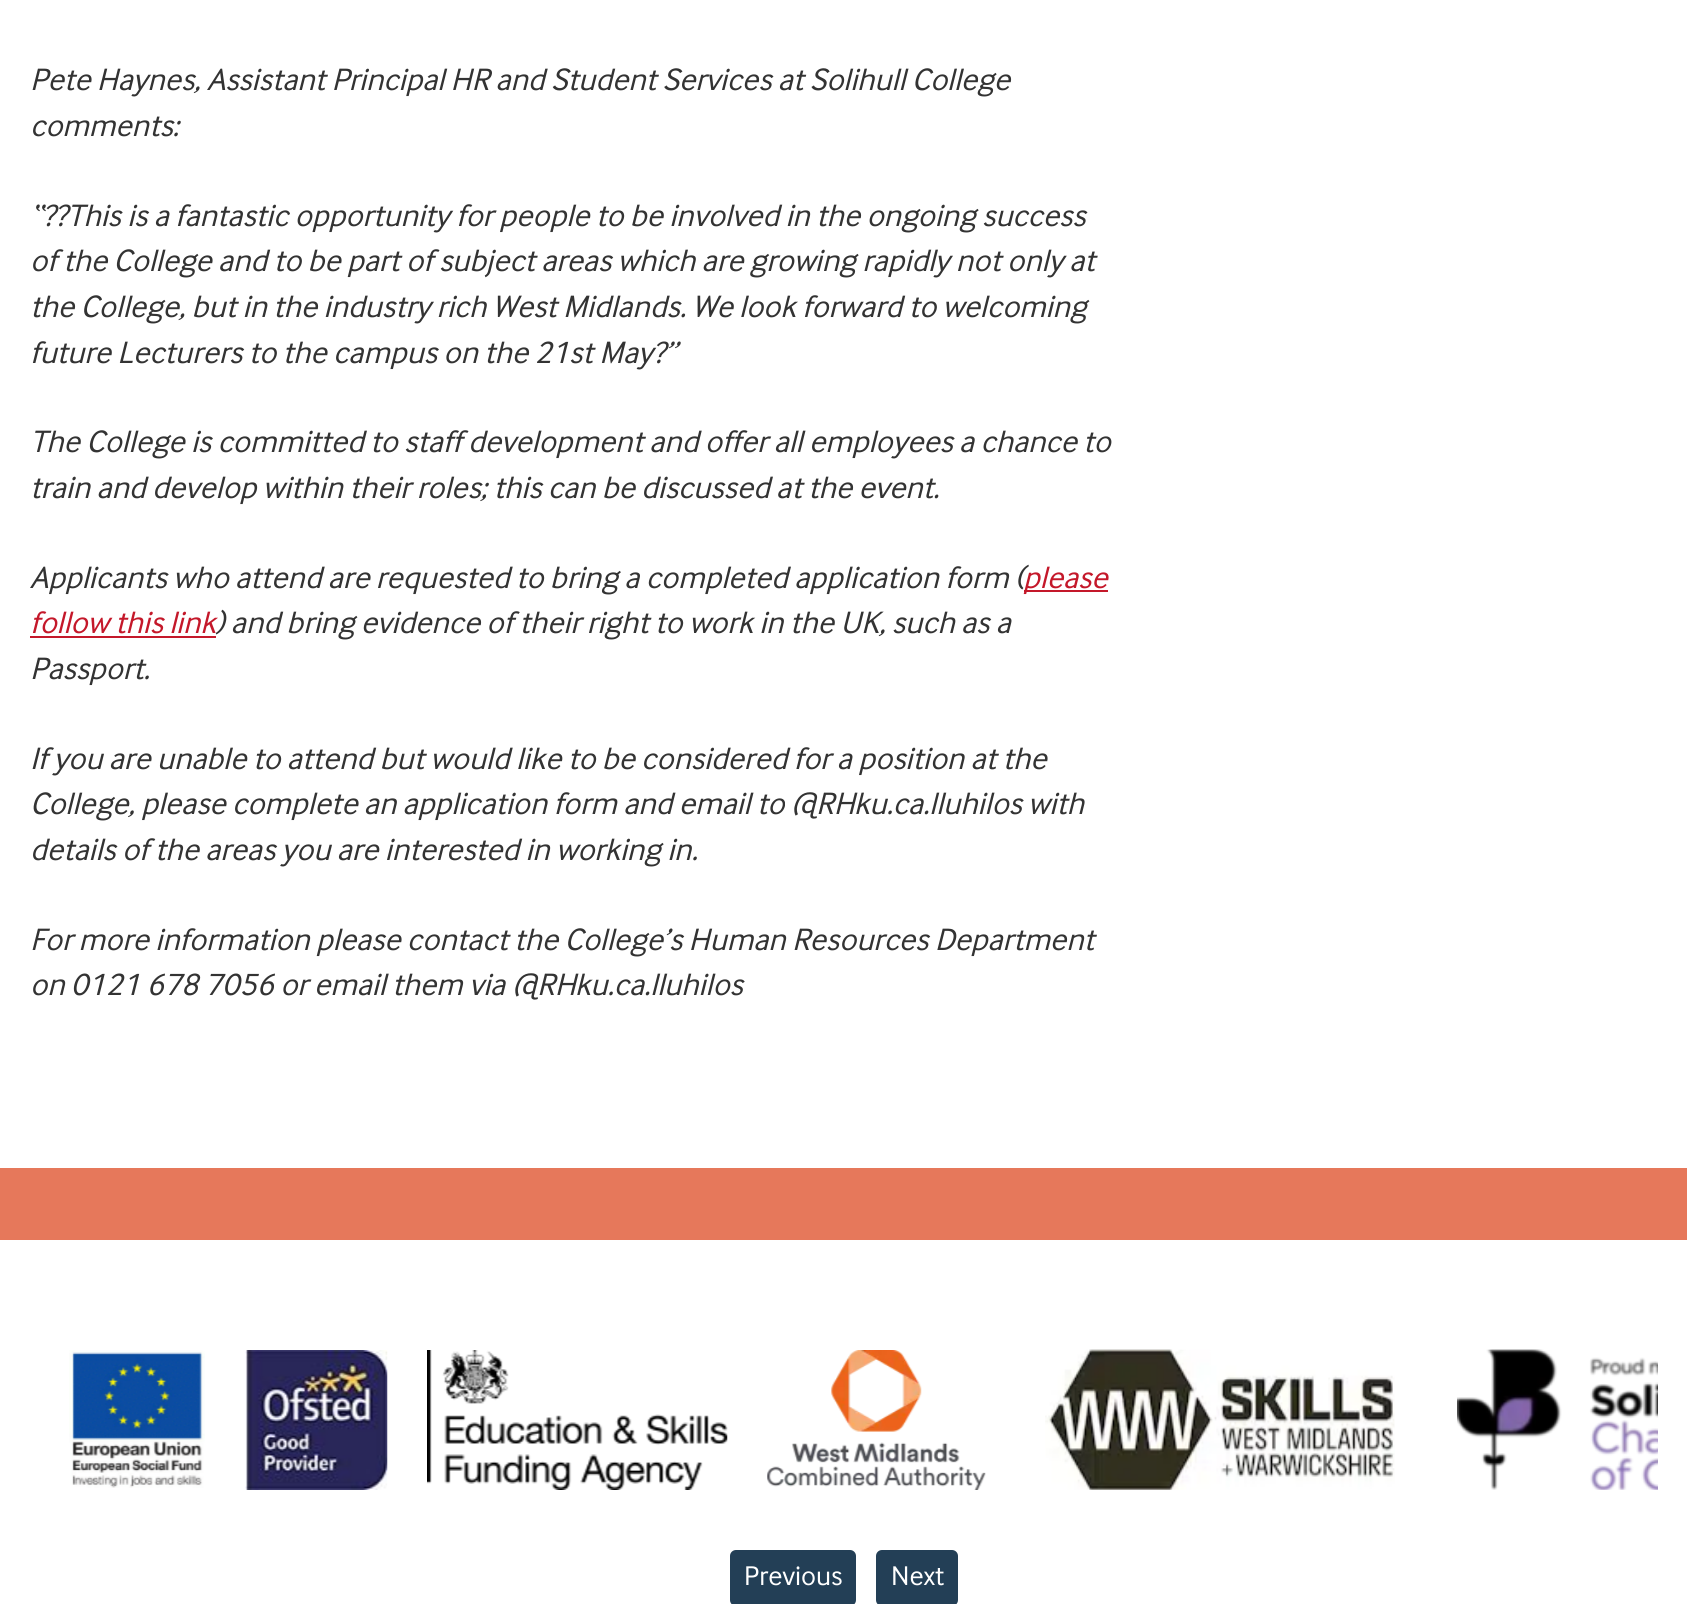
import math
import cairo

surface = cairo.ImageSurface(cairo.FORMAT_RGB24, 1687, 1604)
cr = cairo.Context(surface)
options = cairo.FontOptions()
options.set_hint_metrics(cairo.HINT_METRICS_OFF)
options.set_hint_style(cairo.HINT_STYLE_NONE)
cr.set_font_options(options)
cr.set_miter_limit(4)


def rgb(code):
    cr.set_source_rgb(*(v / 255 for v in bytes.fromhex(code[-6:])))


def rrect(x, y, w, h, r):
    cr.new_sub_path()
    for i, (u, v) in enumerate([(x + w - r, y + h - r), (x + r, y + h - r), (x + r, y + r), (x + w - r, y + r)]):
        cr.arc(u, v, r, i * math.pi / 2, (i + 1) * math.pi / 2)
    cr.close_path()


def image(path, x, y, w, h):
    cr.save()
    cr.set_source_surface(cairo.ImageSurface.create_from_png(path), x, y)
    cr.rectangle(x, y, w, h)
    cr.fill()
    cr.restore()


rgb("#ffffff")
cr.paint()
rgb("#c4182a")
cr.rectangle(30, 636, 186, 2)
cr.fill()
rgb("#e6785b")
cr.rectangle(0, 1168, 1687, 72)
cr.fill()
image("img/1.png", 69, 1350, 136, 138)
image("img/2.png", 245, 1350, 143, 140)
image("img/3.png", 427, 1350, 301, 140)
image("img/4.png", 767, 1350, 219, 140)
image("img/5.png", 1045, 1349, 350, 141)
image("img/6.png", 1457, 1349, 201, 141)
rgb("#233f56")
rrect(730, 1550, 126, 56, 6)
cr.fill()
rrect(876, 1550, 82, 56, 6)
cr.fill()
cr.select_font_face("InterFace", cairo.FONT_SLANT_ITALIC)
cr.set_font_size(32)
rgb("#333333")
for x, y, s in [
    (30, 90, "Pete Haynes, Assistant Principal HR and Student Services at Solihull College"),
    (30, 136, "comments:"),
    (30, 226, "“??This is a fantastic opportunity for people to be involved in the ongoing success"),
    (30, 271, "of the College and to be part of subject areas which are growing rapidly not only at"),
    (30, 317, "the College, but in the industry rich West Midlands. We look forward to welcoming"),
    (30, 363, "future Lecturers to the campus on the 21st May?”"),
    (30, 452, "The College is committed to staff development and offer all employees a chance to"),
    (30, 498, "train and develop within their roles; this can be discussed at the event."),
    (30, 588, "Applicants who attend are requested to bring a completed application form ("),
]:
    cr.move_to(x, y)
    cr.show_text(s)
rgb("#c4182a")
cr.rectangle(1024, 590, 84, 2)
cr.fill()
cr.move_to(1023, 588)
cr.show_text("please")
cr.move_to(30, 633)
cr.show_text("follow this link")
rgb("#333333")
for x, y, s in [
    (216, 633, ") and bring evidence of their right to work in the UK, such as a"),
    (30, 679, "Passport."),
    (30, 769, "If you are unable to attend but would like to be considered for a position at the"),
    (30, 814, "College, please complete an application form and email to"),
    (854, 814, "ku.ca.lluhilos with"),
    (791, 814, "@RH"),
    (30, 860, "details of the areas you are interested in working in."),
    (30, 950, "For more information please contact the College’s Human Resources Department"),
    (30, 995, "on 0121 678 7056 or email them via"),
    (575, 995, "ku.ca.lluhilos"),
    (512, 995, "@RH"),
]:
    cr.move_to(x, y)
    cr.show_text(s)
cr.select_font_face("InterFace")
cr.set_font_size(28)
rgb("#ffffff")
cr.move_to(744, 1585)
cr.show_text("Previous")
cr.move_to(891, 1585)
cr.show_text("Next")
surface.write_to_png("page.png")
